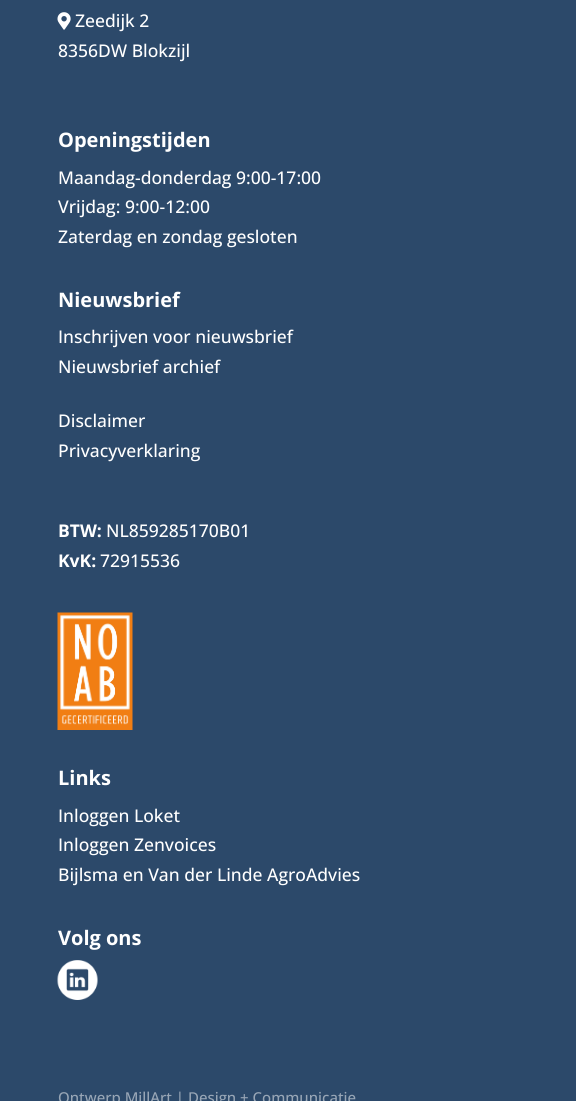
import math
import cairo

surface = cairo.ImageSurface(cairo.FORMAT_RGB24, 576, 1101)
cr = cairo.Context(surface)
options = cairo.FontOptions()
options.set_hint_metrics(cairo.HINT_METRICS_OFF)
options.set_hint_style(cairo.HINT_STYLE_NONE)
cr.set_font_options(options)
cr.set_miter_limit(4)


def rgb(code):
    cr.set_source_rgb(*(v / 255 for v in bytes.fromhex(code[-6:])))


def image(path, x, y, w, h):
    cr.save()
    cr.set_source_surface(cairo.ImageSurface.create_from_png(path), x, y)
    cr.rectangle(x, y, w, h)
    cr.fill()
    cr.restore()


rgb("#2c496a")
cr.paint()
image("img/1.png", 57, 12, 14, 18)
image("img/2.png", 57, 612, 76, 118)
image("img/3.png", 57, 960, 41, 40)
cr.select_font_face("Open Sans Medium")
cr.set_font_size(17.5)
rgb("#ffffff")
cr.move_to(75, 27)
cr.show_text("Zeedijk 2")
cr.move_to(58, 57)
cr.show_text("8356DW Blokzijl")
cr.select_font_face("Open Sans", cairo.FONT_SLANT_NORMAL, cairo.FONT_WEIGHT_BOLD)
cr.set_font_size(20)
cr.move_to(58, 147)
cr.show_text("Openingstijden")
cr.select_font_face("Open Sans Medium")
cr.set_font_size(17.5)
for x, y, s in [
    (58, 184, "Maandag-donderdag 9:00-17:00"),
    (58, 213, "Vrijdag: 9:00-12:00"),
    (58, 243, "Zaterdag en zondag gesloten"),
]:
    cr.move_to(x, y)
    cr.show_text(s)
cr.select_font_face("Open Sans", cairo.FONT_SLANT_NORMAL, cairo.FONT_WEIGHT_BOLD)
cr.set_font_size(20)
cr.move_to(58, 307)
cr.show_text("Nieuwsbrief")
cr.select_font_face("Open Sans Medium")
cr.set_font_size(17.5)
for x, y, s in [
    (58, 343, "Inschrijven voor nieuwsbrief"),
    (58, 373, "Nieuwsbrief archief"),
    (58, 427, "Disclaimer"),
    (58, 457, "Privacyverklaring"),
]:
    cr.move_to(x, y)
    cr.show_text(s)
cr.select_font_face("Open Sans", cairo.FONT_SLANT_NORMAL, cairo.FONT_WEIGHT_BOLD)
cr.move_to(58, 537)
cr.show_text("BTW:")
cr.select_font_face("Open Sans Medium")
cr.move_to(106, 537)
cr.show_text("NL859285170B01")
cr.select_font_face("Open Sans", cairo.FONT_SLANT_NORMAL, cairo.FONT_WEIGHT_BOLD)
cr.move_to(58, 567)
cr.show_text("KvK:")
cr.select_font_face("Open Sans Medium")
cr.move_to(100, 567)
cr.show_text("72915536")
cr.select_font_face("Open Sans", cairo.FONT_SLANT_NORMAL, cairo.FONT_WEIGHT_BOLD)
cr.set_font_size(20)
cr.move_to(58, 785)
cr.show_text("Links")
cr.select_font_face("Open Sans Medium")
cr.set_font_size(17.5)
for x, y, s in [
    (58, 822, "Inloggen Loket"),
    (58, 851, "Inloggen Zenvoices"),
    (58, 881, "Bijlsma en Van der Linde AgroAdvies"),
]:
    cr.move_to(x, y)
    cr.show_text(s)
cr.select_font_face("Open Sans", cairo.FONT_SLANT_NORMAL, cairo.FONT_WEIGHT_BOLD)
cr.set_font_size(20)
cr.move_to(58, 945)
cr.show_text("Volg ons")
cr.select_font_face("Open Sans Medium")
cr.set_font_size(15)
rgb("#98a6b6")
cr.move_to(58, 1103)
cr.show_text("Ontwerp MillArt | Design + Communicatie")
surface.write_to_png("page.png")
